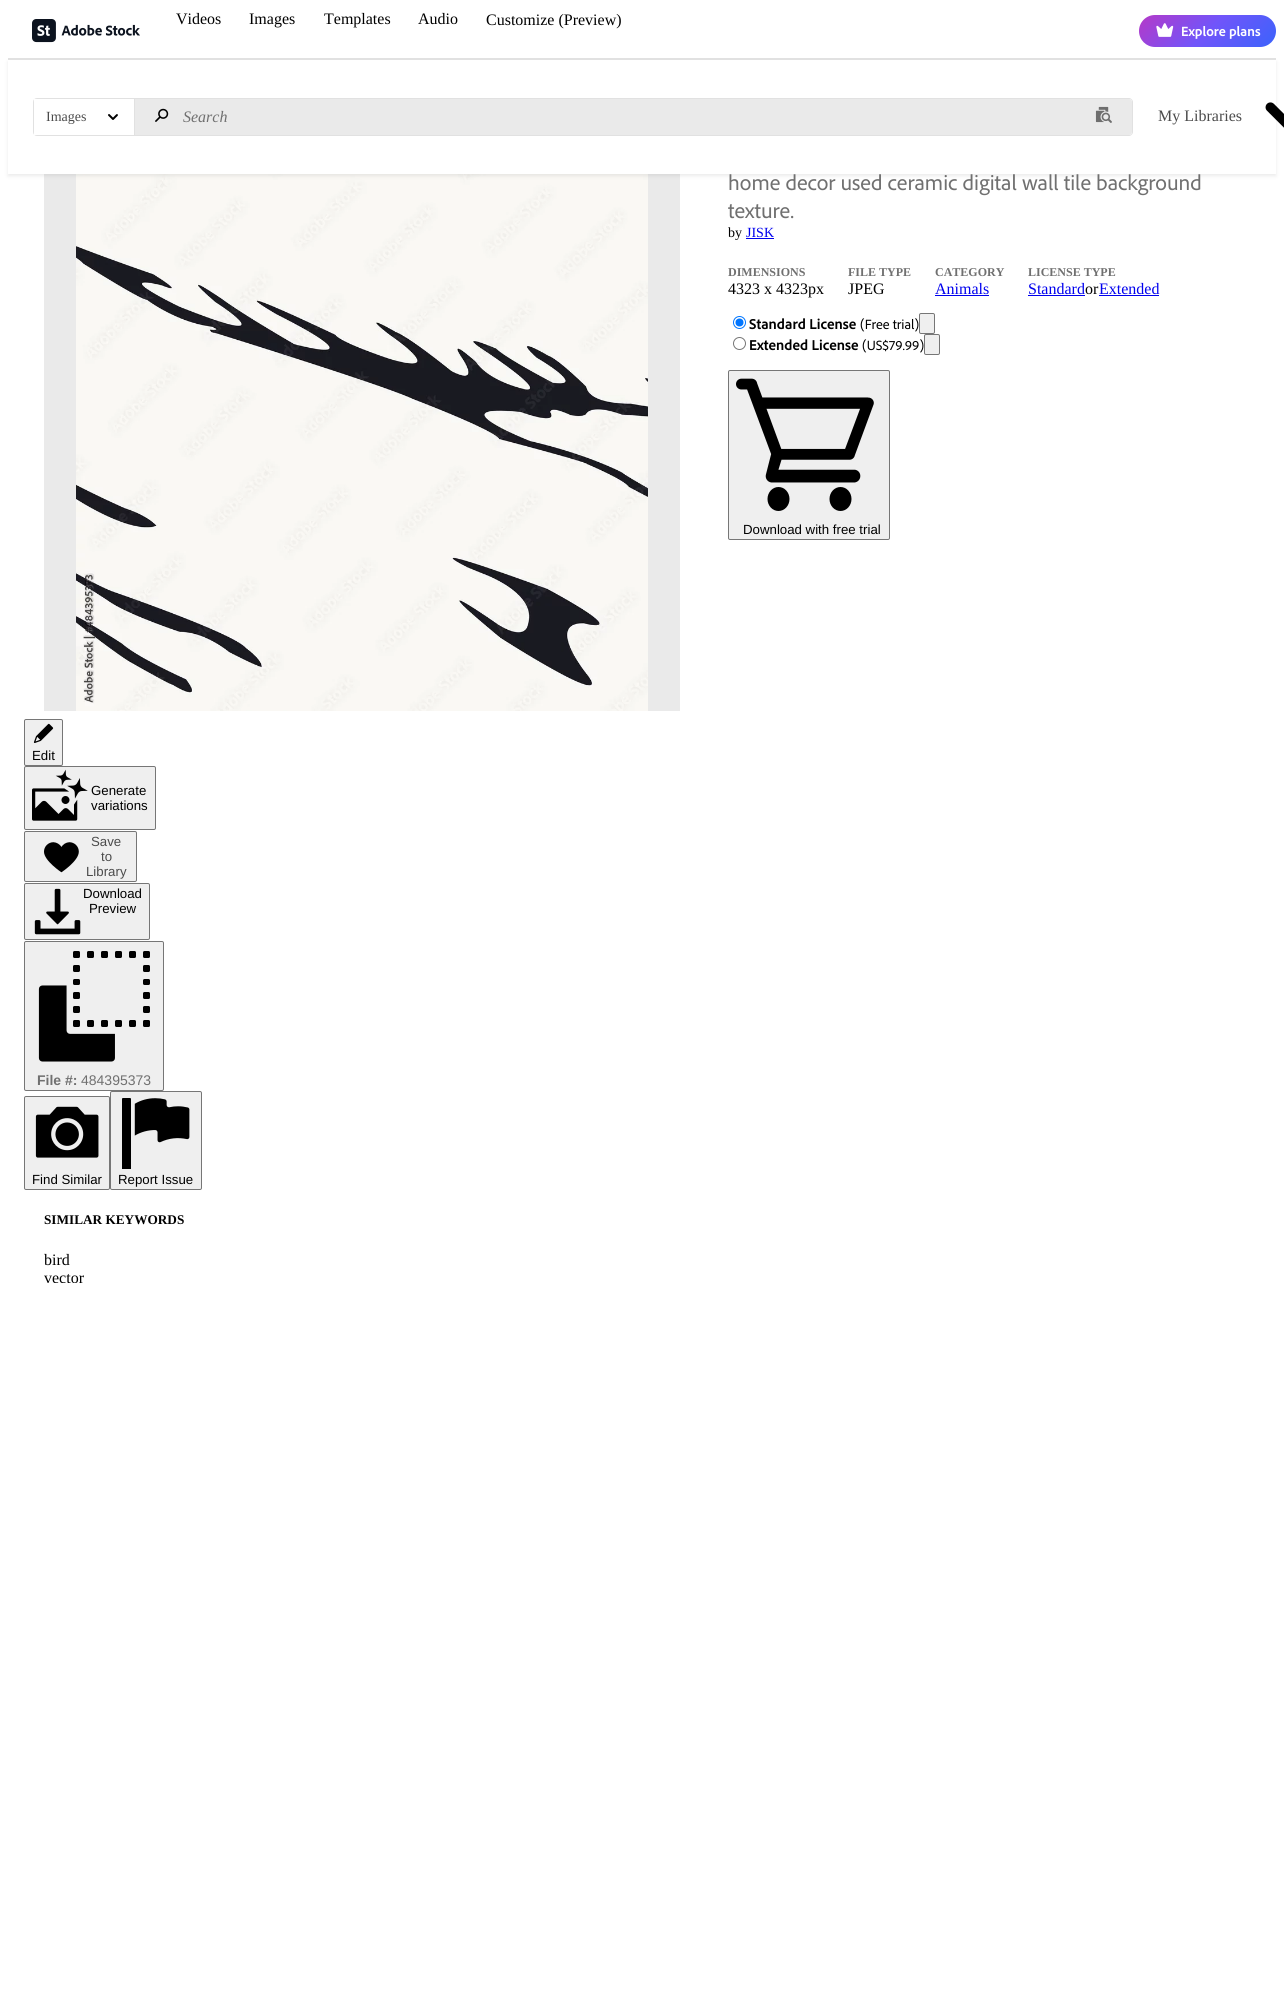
import math
import cairo

surface = cairo.ImageSurface(cairo.FORMAT_RGB24, 1284, 2001)
cr = cairo.Context(surface)
options = cairo.FontOptions()
options.set_hint_metrics(cairo.HINT_METRICS_OFF)
options.set_hint_style(cairo.HINT_STYLE_NONE)
cr.set_font_options(options)
cr.set_miter_limit(4)


def rgb(code):
    cr.set_source_rgb(*(v / 255 for v in bytes.fromhex(code[-6:])))


def rrect(x, y, w, h, r):
    cr.new_sub_path()
    for i, (u, v) in enumerate([(x + w - r, y + h - r), (x + r, y + h - r), (x + r, y + r), (x + w - r, y + r)]):
        cr.arc(u, v, r, i * math.pi / 2, (i + 1) * math.pi / 2)
    cr.close_path()


def soft_shadow(x, y, w, h, r, blur, alpha):
    cr.push_group_with_content(cairo.CONTENT_ALPHA)
    cr.set_operator(cairo.OPERATOR_SOURCE)
    for i in range(15, -16, -2):
        e = blur * i / 6
        if min(w, h) + 2 * e > 0:
            cr.set_source_rgba(0, 0, 0, alpha * math.erfc((i - 1) / 8.5) / 2)
            rrect(x - e, y - e, w + 2 * e, h + 2 * e, max(0, min(r + e + blur * .6, min(w, h) / 2 + e)))
            cr.fill()
    cr.mask(cr.pop_group())


def image(path, x, y, w, h):
    cr.save()
    cr.set_source_surface(cairo.ImageSurface.create_from_png(path), x, y)
    cr.rectangle(x, y, w, h)
    cr.fill()
    cr.restore()


rgb("#ffffff")
cr.paint()
rgb("#eaeaea")
cr.rectangle(44, 174, 636, 537)
cr.fill()
image("img/8.png", 76, 174, 572, 537)
rgb("#343434")
soft_shadow(8, 62, 1268, 114, 0, 2, 0.1)
rgb("#e1e1e1")
cr.rectangle(8, 58, 1268, 2)
cr.fill()
image("img/1.png", 32, 19, 108, 24)
gradient = cairo.LinearGradient(1165, -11, 1250, 73)
gradient.add_color_stop_rgba(0, 0.71, 0.224, 0.784, 1)
gradient.add_color_stop_rgba(0.5, 0.443, 0.333, 0.98, 1)
gradient.add_color_stop_rgba(1, 0.231, 0.388, 0.984, 1)
cr.set_source(gradient)
rrect(1139, 15, 137, 32, 16)
cr.fill()
image("img/2.png", 1156, 23, 18, 14)
rgb("#ffffff")
cr.rectangle(8, 60, 1268, 114)
cr.fill()
cr.new_path()
cr.move_to(37, 98.5)
cr.line_to(134.5, 98.5)
cr.line_to(134.5, 135.5)
cr.line_to(37, 135.5)
cr.curve_to(35, 135.5, 33.5, 134, 33.5, 132)
cr.line_to(33.5, 102)
cr.curve_to(33.5, 100, 35, 98.5, 37, 98.5)
cr.close_path()
rgb("#e1e1e1")
cr.set_line_width(1)
cr.stroke()
rgb("#ffffff")
cr.rectangle(34, 99, 3, 36)
cr.fill()
image("img/3.png", 108, 114, 10, 6)
rgb("#eaeaea")
cr.new_path()
cr.move_to(135, 99)
cr.line_to(1129, 99)
cr.curve_to(1130.5, 99, 1132, 100.5, 1132, 102)
cr.line_to(1132, 132)
cr.curve_to(1132, 133.5, 1130.5, 135, 1129, 135)
cr.line_to(135, 135)
cr.close_path()
cr.fill()
rgb("#e1e1e1")
cr.set_fill_rule(cairo.FILL_RULE_EVEN_ODD)
cr.new_path()
cr.move_to(135, 98)
cr.line_to(1129, 98)
cr.curve_to(1131, 98, 1133, 100, 1133, 102)
cr.line_to(1133, 132)
cr.curve_to(1133, 134, 1131, 136, 1129, 136)
cr.line_to(135, 136)
cr.close_path()
cr.move_to(135, 99)
cr.line_to(1129, 99)
cr.curve_to(1131, 99, 1132, 100, 1132, 102)
cr.line_to(1132, 132)
cr.curve_to(1132, 134, 1131, 135, 1129, 135)
cr.line_to(135, 135)
cr.close_path()
cr.fill()
image("img/4.png", 155, 108, 14, 14)
image("img/5.png", 1095, 106, 17, 17)
image("img/6.png", 1265, 102, 19, 26)
for x, y, w, h, color in [
    (746, 238, 28, 1, "#0000ee"),
    (935, 295, 54, 1, "#0000ee"),
    (1028, 295, 57, 1, "#0000ee"),
    (1099, 295, 60, 1, "#0000ee"),
]:
    rgb(color)
    cr.rectangle(x, y, w, h)
    cr.fill()
cr.arc(739.5, 322.5, 6, 0, 2 * math.pi)
rgb("#0075ff")
cr.stroke()
cr.arc(739.5, 322.5, 4, 0, 2 * math.pi)
cr.fill()
rgb("#efefef")
rrect(919.5, 313.5, 15, 20, 1.5)
cr.fill_preserve()
rgb("#767676")
cr.stroke()
cr.arc(739.5, 343.5, 6, 0, 2 * math.pi)
cr.stroke()
rgb("#efefef")
rrect(924.5, 334.5, 15, 20, 1.5)
cr.fill_preserve()
rgb("#767676")
cr.stroke()
rgb("#efefef")
rrect(728.5, 370.5, 161, 169, 1.5)
cr.fill_preserve()
rgb("#767676")
cr.stroke()
image("img/7.png", 736, 378, 138, 133)
rgb("#efefef")
rrect(24.5, 719.5, 38, 46, 1.5)
cr.fill_preserve()
rgb("#767676")
cr.stroke()
image("img/9.png", 33, 723, 21, 20)
rgb("#efefef")
rrect(24.5, 766.5, 131, 63, 1.5)
cr.fill_preserve()
rgb("#767676")
cr.stroke()
image("img/10.png", 32, 769, 56, 52)
rgb("#efefef")
rrect(24.5, 831.5, 112, 50, 1.5)
cr.fill_preserve()
rgb("#767676")
cr.stroke()
image("img/11.png", 44, 842, 35, 31)
rgb("#efefef")
rrect(24.5, 883.5, 125, 56, 1.5)
cr.fill_preserve()
rgb("#767676")
cr.stroke()
image("img/12.png", 34, 888, 47, 47)
rgb("#efefef")
rrect(24.5, 941.5, 139, 149, 1.5)
cr.fill_preserve()
rgb("#767676")
cr.stroke()
image("img/13.png", 38, 951, 112, 111)
rgb("#efefef")
rrect(24.5, 1096.5, 85, 93, 1.5)
cr.fill_preserve()
rgb("#767676")
cr.stroke()
image("img/14.png", 35, 1106, 64, 52)
rgb("#efefef")
rrect(110.5, 1091.5, 91, 98, 1.5)
cr.fill_preserve()
rgb("#767676")
cr.stroke()
image("img/15.png", 122, 1098, 68, 71)
cr.select_font_face("Liberation Serif")
cr.set_font_size(16)
rgb("#000000")
for x, y, s in [
    (176, 24, "Videos"),
    (249, 24, "Images"),
    (324, 24, "Templates"),
    (418, 24, "Audio"),
    (486, 25, "Customize (Preview)"),
]:
    cr.move_to(x, y)
    cr.show_text(s)
cr.select_font_face("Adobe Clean", cairo.FONT_SLANT_NORMAL, cairo.FONT_WEIGHT_BOLD)
cr.set_font_size(14)
rgb("#ffffff")
cr.move_to(1181, 36)
cr.show_text("Explore plans")
cr.select_font_face("Liberation Serif")
rgb("#4b4b4b")
cr.move_to(46, 121)
cr.show_text("Images")
cr.select_font_face("Liberation Serif", cairo.FONT_SLANT_ITALIC)
cr.set_font_size(16)
rgb("#707070")
cr.move_to(183, 122)
cr.show_text("Search")
cr.select_font_face("Liberation Serif")
rgb("#4b4b4b")
cr.move_to(1158, 121)
cr.show_text("My Libraries")
cr.select_font_face("Adobe Clean")
cr.set_font_size(22)
rgb("#707070")
cr.move_to(728, 190)
cr.show_text("home decor used ceramic digital wall tile background")
cr.move_to(728, 218)
cr.show_text("texture.")
cr.select_font_face("Liberation Serif")
cr.set_font_size(14)
rgb("#000000")
cr.move_to(728, 237)
cr.show_text("by")
rgb("#0000ee")
cr.move_to(746, 237)
cr.show_text("JISK")
cr.select_font_face("Liberation Serif", cairo.FONT_SLANT_NORMAL, cairo.FONT_WEIGHT_BOLD)
cr.set_font_size(12)
rgb("#707070")
cr.move_to(728, 276)
cr.show_text("DIMENSIONS")
cr.select_font_face("Liberation Serif")
cr.set_font_size(16)
rgb("#000000")
cr.move_to(728, 294)
cr.show_text("4323 x 4323px")
cr.select_font_face("Liberation Serif", cairo.FONT_SLANT_NORMAL, cairo.FONT_WEIGHT_BOLD)
cr.set_font_size(12)
rgb("#707070")
cr.move_to(848, 276)
cr.show_text("FILE TYPE")
cr.select_font_face("Liberation Serif")
cr.set_font_size(16)
rgb("#000000")
cr.move_to(848, 294)
cr.show_text("JPEG")
cr.select_font_face("Liberation Serif", cairo.FONT_SLANT_NORMAL, cairo.FONT_WEIGHT_BOLD)
cr.set_font_size(12)
rgb("#707070")
cr.move_to(935, 276)
cr.show_text("CATEGORY")
cr.select_font_face("Liberation Serif")
cr.set_font_size(16)
rgb("#0000ee")
cr.move_to(935, 294)
cr.show_text("Animals")
cr.select_font_face("Liberation Serif", cairo.FONT_SLANT_NORMAL, cairo.FONT_WEIGHT_BOLD)
cr.set_font_size(12)
rgb("#707070")
cr.move_to(1028, 276)
cr.show_text("LICENSE TYPE")
cr.select_font_face("Liberation Serif")
cr.set_font_size(16)
rgb("#0000ee")
cr.move_to(1028, 294)
cr.show_text("Standard")
rgb("#000000")
cr.move_to(1085, 294)
cr.show_text("or")
rgb("#0000ee")
cr.move_to(1099, 294)
cr.show_text("Extended")
cr.select_font_face("Adobe Clean", cairo.FONT_SLANT_NORMAL, cairo.FONT_WEIGHT_BOLD)
cr.set_font_size(15)
rgb("#000000")
cr.move_to(749, 329)
cr.show_text("Standard License")
cr.select_font_face("Adobe Clean")
cr.set_font_size(14)
cr.move_to(860, 329)
cr.show_text("(Free trial)")
cr.select_font_face("Adobe Clean", cairo.FONT_SLANT_NORMAL, cairo.FONT_WEIGHT_BOLD)
cr.set_font_size(15)
cr.move_to(749, 350)
cr.show_text("Extended License")
cr.select_font_face("Adobe Clean")
cr.set_font_size(14)
cr.move_to(862, 350)
cr.show_text("(US$79.99)")
cr.select_font_face("Liberation Sans")
cr.set_font_size(13.25)
for x, y, s in [
    (743, 534, "Download with free trial"),
    (32, 760, "Edit"),
    (91, 795, "Generate"),
    (91, 810, "variations"),
]:
    cr.move_to(x, y)
    cr.show_text(s)
rgb("#4b4b4b")
for x, y, s in [
    (91, 846, "Save"),
    (101, 861, "to"),
    (86, 876, "Library"),
]:
    cr.move_to(x, y)
    cr.show_text(s)
rgb("#000000")
cr.move_to(83, 898)
cr.show_text("Download")
cr.move_to(89, 913)
cr.show_text("Preview")
cr.select_font_face("Liberation Sans", cairo.FONT_SLANT_NORMAL, cairo.FONT_WEIGHT_BOLD)
cr.set_font_size(14)
rgb("#707070")
cr.move_to(37, 1085)
cr.show_text("File #:")
cr.select_font_face("Liberation Sans")
cr.move_to(81, 1085)
cr.show_text("484395373")
cr.set_font_size(13.25)
rgb("#000000")
cr.move_to(32, 1184)
cr.show_text("Find Similar")
cr.move_to(118, 1184)
cr.show_text("Report Issue")
cr.select_font_face("Liberation Serif", cairo.FONT_SLANT_NORMAL, cairo.FONT_WEIGHT_BOLD)
cr.move_to(44, 1224)
cr.show_text("SIMILAR KEYWORDS")
cr.select_font_face("Liberation Serif")
cr.set_font_size(16)
cr.move_to(44, 1265)
cr.show_text("bird")
cr.save()
cr.set_fill_rule(cairo.FILL_RULE_WINDING)
cr.rectangle(44, 1251, 1196, 32)
cr.clip()
cr.move_to(44, 1283)
cr.show_text("vector")
cr.restore()
surface.write_to_png("page.png")
